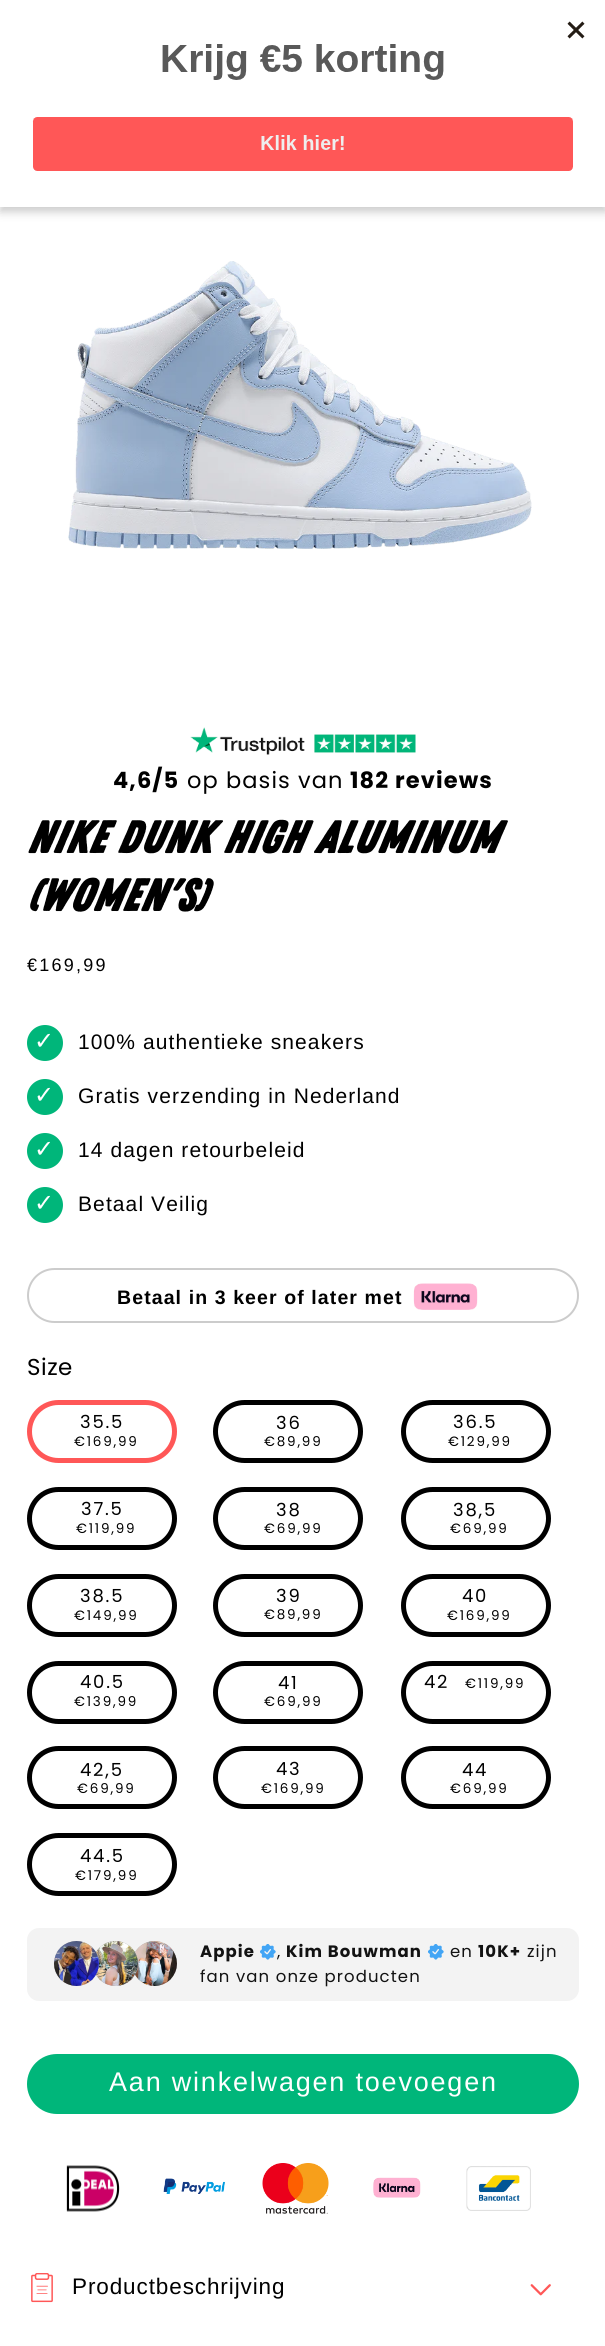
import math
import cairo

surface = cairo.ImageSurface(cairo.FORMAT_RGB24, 605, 2346)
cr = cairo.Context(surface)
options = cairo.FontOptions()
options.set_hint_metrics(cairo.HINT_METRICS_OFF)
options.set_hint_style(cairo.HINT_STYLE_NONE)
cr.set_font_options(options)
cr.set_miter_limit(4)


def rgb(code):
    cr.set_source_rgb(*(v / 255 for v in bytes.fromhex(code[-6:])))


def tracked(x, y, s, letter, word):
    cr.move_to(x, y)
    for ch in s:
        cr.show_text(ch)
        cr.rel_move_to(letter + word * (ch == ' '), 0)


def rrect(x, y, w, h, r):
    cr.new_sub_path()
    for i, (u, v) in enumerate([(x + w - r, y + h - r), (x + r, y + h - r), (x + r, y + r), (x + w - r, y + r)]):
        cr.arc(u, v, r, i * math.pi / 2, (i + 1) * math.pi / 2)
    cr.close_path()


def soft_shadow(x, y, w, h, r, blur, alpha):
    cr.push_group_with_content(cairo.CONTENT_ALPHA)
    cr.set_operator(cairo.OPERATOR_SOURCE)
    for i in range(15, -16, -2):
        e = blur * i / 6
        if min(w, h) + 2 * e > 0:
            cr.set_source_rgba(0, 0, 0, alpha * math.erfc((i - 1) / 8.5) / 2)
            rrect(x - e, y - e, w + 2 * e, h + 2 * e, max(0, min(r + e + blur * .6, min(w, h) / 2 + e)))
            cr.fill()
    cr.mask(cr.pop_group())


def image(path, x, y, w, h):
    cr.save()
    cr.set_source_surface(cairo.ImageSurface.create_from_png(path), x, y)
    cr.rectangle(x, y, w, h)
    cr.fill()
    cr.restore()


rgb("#ffffff")
cr.paint()
rgb("#000000")
soft_shadow(0, 5, 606, 207, 0, 4.5, 0.2)
rgb("#ffffff")
cr.rectangle(0, 0, 605, 207)
cr.fill()
image("img/1.png", 32, 21, 553, 150)
image("img/2.png", 68, 261, 464, 288)
image("img/3.png", 190, 727, 226, 28)
rgb("#00b67a")
cr.arc(45, 1043, 18, 0, 2 * math.pi)
cr.fill()
cr.arc(45, 1097, 18, 0, 2 * math.pi)
cr.fill()
cr.arc(45, 1151, 18, 0, 2 * math.pi)
cr.fill()
cr.arc(45, 1205, 18, 0, 2 * math.pi)
cr.fill()
rrect(28, 1269, 550, 53, 26.5)
rgb("#cccccc")
cr.stroke()
image("img/4.png", 413, 1283, 65, 27)
rrect(29.5, 1402.5, 145, 58, 29)
rgb("#ff5757")
cr.set_line_width(5)
cr.stroke()
rrect(215.5, 1402.5, 145, 58, 29)
rgb("#000000")
cr.stroke()
rrect(403.5, 1402.5, 145, 58, 29)
cr.stroke()
rrect(29.5, 1489.5, 145, 58, 29)
cr.stroke()
rrect(215.5, 1489.5, 145, 58, 29)
cr.stroke()
rrect(403.5, 1489.5, 145, 58, 29)
cr.stroke()
rrect(29.5, 1576.5, 145, 58, 29)
cr.stroke()
rrect(215.5, 1576.5, 145, 58, 29)
cr.stroke()
rrect(403.5, 1576.5, 145, 58, 29)
cr.stroke()
rrect(29.5, 1663.5, 145, 58, 29)
cr.stroke()
rrect(215.5, 1663.5, 145, 58, 29)
cr.stroke()
rrect(403.5, 1663.5, 145, 58, 29)
cr.stroke()
rrect(29.5, 1748.5, 145, 58, 29)
cr.stroke()
rrect(215.5, 1748.5, 145, 58, 29)
cr.stroke()
rrect(403.5, 1748.5, 145, 58, 29)
cr.stroke()
rrect(29.5, 1835.5, 145, 58, 29)
cr.stroke()
rgb("#f3f3f3")
rrect(27, 1928, 552, 73, 12)
cr.fill()
rgb("#afafaf")
cr.arc(154.5, 1963.5, 22.5, 0, 2 * math.pi)
cr.fill()
image("img/7.png", 134, 1941, 43, 45)
cr.arc(115.5, 1963.5, 22.5, 0, 2 * math.pi)
cr.fill()
image("img/6.png", 95, 1941, 43, 45)
cr.arc(76.5, 1963.5, 22.5, 0, 2 * math.pi)
cr.fill()
image("img/5.png", 54, 1941, 45, 45)
image("img/8.png", 260, 1944, 16, 16)
image("img/8.png", 428, 1944, 16, 16)
rgb("#00b67a")
rrect(27, 2054, 552, 60, 30)
cr.fill()
image("img/9.png", 66, 2165, 54, 47)
image("img/10.png", 163, 2178, 62, 16)
image("img/11.png", 262, 2163, 67, 51)
image("img/12.png", 373, 2177, 48, 21)
image("img/13.png", 466, 2166, 65, 45)
image("img/14.png", 31, 2273, 22, 30)
image("img/15.png", 530, 2284, 21, 12)
cr.select_font_face("Poppins", cairo.FONT_SLANT_NORMAL, cairo.FONT_WEIGHT_BOLD)
cr.set_font_size(22.5)
rgb("#000000")
tracked(113, 788, "4,6/5", 1.1, 0)
cr.select_font_face("Poppins")
tracked(187, 788, "op basis van", 1.1, 0)
cr.select_font_face("Poppins", cairo.FONT_SLANT_NORMAL, cairo.FONT_WEIGHT_BOLD)
tracked(350, 788, "182 reviews", 1.1, 0)
cr.select_font_face("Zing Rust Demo", cairo.FONT_SLANT_ITALIC, cairo.FONT_WEIGHT_BOLD)
cr.set_font_size(45)
tracked(27, 853, "NIKE DUNK HIGH ALUMINUM", 0.9, 0)
tracked(27, 911, "(WOMEN'S)", 0.9, 0)
cr.select_font_face("Liberation Sans")
cr.set_font_size(18)
tracked(27, 971, "€169,99", 2.25, 0)
cr.select_font_face("DejaVu Sans")
cr.set_font_size(24)
rgb("#ffffff")
tracked(34, 1049, "✓", 1.1, 0)
cr.select_font_face("Liberation Sans")
cr.set_font_size(21)
rgb("#000000")
tracked(78, 1049, "100% authentieke sneakers", 1.1, 0)
cr.select_font_face("DejaVu Sans")
cr.set_font_size(24)
rgb("#ffffff")
tracked(34, 1103, "✓", 1.1, 0)
cr.select_font_face("Liberation Sans")
cr.set_font_size(21)
rgb("#000000")
tracked(78, 1103, "Gratis verzending in Nederland", 1.1, 0)
cr.select_font_face("DejaVu Sans")
cr.set_font_size(24)
rgb("#ffffff")
tracked(34, 1157, "✓", 1.1, 0)
cr.select_font_face("Liberation Sans")
cr.set_font_size(21)
rgb("#000000")
tracked(78, 1157, "14 dagen retourbeleid", 1.1, 0)
cr.select_font_face("DejaVu Sans")
cr.set_font_size(24)
rgb("#ffffff")
tracked(34, 1211, "✓", 1.1, 0)
cr.select_font_face("Liberation Sans")
cr.set_font_size(21)
rgb("#000000")
tracked(78, 1211, "Betaal Veilig", 1.1, 0)
cr.select_font_face("Liberation Sans", cairo.FONT_SLANT_NORMAL, cairo.FONT_WEIGHT_BOLD)
cr.set_font_size(19.5)
tracked(117, 1304, "Betaal in 3 keer of later met", 1.1, 0)
cr.select_font_face("Poppins")
cr.set_font_size(23)
tracked(27, 1375, "Size", 0.5, 0)
cr.set_font_size(18)
tracked(80, 1428, "35.5", 1.8, 0)
cr.set_font_size(13.5)
tracked(74, 1446, "€169,99", 1.8, 0)
cr.set_font_size(18)
tracked(276, 1429, "36", 1.8, 0)
cr.set_font_size(13.5)
tracked(264, 1446, "€89,99", 1.8, 0)
cr.set_font_size(18)
tracked(453, 1428, "36.5", 1.8, 0)
cr.set_font_size(13.5)
tracked(448, 1446, "€129,99", 1.8, 0)
cr.set_font_size(18)
tracked(81, 1515, "37.5", 1.8, 0)
cr.set_font_size(13.5)
tracked(76, 1533, "€119,99", 1.8, 0)
cr.set_font_size(18)
tracked(276, 1516, "38", 1.8, 0)
cr.set_font_size(13.5)
tracked(264, 1533, "€69,99", 1.8, 0)
cr.set_font_size(18)
tracked(453, 1516, "38,5", 1.8, 0)
cr.set_font_size(13.5)
tracked(450, 1533, "€69,99", 1.8, 0)
cr.set_font_size(18)
tracked(80, 1602, "38.5", 1.8, 0)
cr.set_font_size(13.5)
tracked(74, 1620, "€149,99", 1.8, 0)
cr.set_font_size(18)
tracked(276, 1602, "39", 1.8, 0)
cr.set_font_size(13.5)
tracked(264, 1619, "€89,99", 1.8, 0)
cr.set_font_size(18)
tracked(462, 1602, "40", 1.8, 0)
cr.set_font_size(13.5)
tracked(447, 1620, "€169,99", 1.8, 0)
cr.set_font_size(18)
tracked(80, 1688, "40.5", 1.8, 0)
cr.set_font_size(13.5)
tracked(74, 1706, "€139,99", 1.8, 0)
cr.set_font_size(18)
tracked(278, 1689, "41", 1.8, 0)
cr.set_font_size(13.5)
tracked(264, 1706, "€69,99", 1.8, 0)
cr.set_font_size(18)
tracked(424, 1688, "42", 1.8, 0)
cr.set_font_size(13.5)
tracked(465, 1688, "€119,99", 1.8, 0)
cr.set_font_size(18)
tracked(80, 1776, "42,5", 1.8, 0)
cr.set_font_size(13.5)
tracked(77, 1793, "€69,99", 1.8, 0)
cr.set_font_size(18)
tracked(276, 1775, "43", 1.8, 0)
cr.set_font_size(13.5)
tracked(261, 1793, "€169,99", 1.8, 0)
cr.set_font_size(18)
tracked(462, 1776, "44", 1.8, 0)
cr.set_font_size(13.5)
tracked(450, 1793, "€69,99", 1.8, 0)
cr.set_font_size(18)
tracked(80, 1862, "44.5", 1.8, 0)
cr.set_font_size(13.5)
tracked(75, 1880, "€179,99", 1.8, 0)
cr.select_font_face("Poppins", cairo.FONT_SLANT_NORMAL, cairo.FONT_WEIGHT_BOLD)
cr.set_font_size(16.5)
rgb("#121212")
tracked(200, 1957, "Appie", 1.1, 0)
cr.select_font_face("Poppins")
tracked(277, 1957, ",", 1.1, 0)
cr.select_font_face("Poppins", cairo.FONT_SLANT_NORMAL, cairo.FONT_WEIGHT_BOLD)
tracked(286, 1957, "Kim Bouwman", 1.1, 0)
cr.select_font_face("Poppins")
tracked(450, 1957, "en", 1.1, 0)
cr.select_font_face("Poppins", cairo.FONT_SLANT_NORMAL, cairo.FONT_WEIGHT_BOLD)
tracked(478, 1957, "10K+", 1.1, 0)
cr.select_font_face("Poppins")
tracked(527, 1957, "zijn", 1.1, 0)
tracked(200, 1982, "fan van onze producten", 1.1, 0)
cr.select_font_face("Liberation Sans")
cr.set_font_size(27)
rgb("#ffffff")
tracked(109, 2091, "Aan winkelwagen toevoegen", 1.8, 0)
cr.set_font_size(22.5)
rgb("#000000")
tracked(72, 2294, "Productbeschrijving", 0.9, 0)
surface.write_to_png("page.png")
